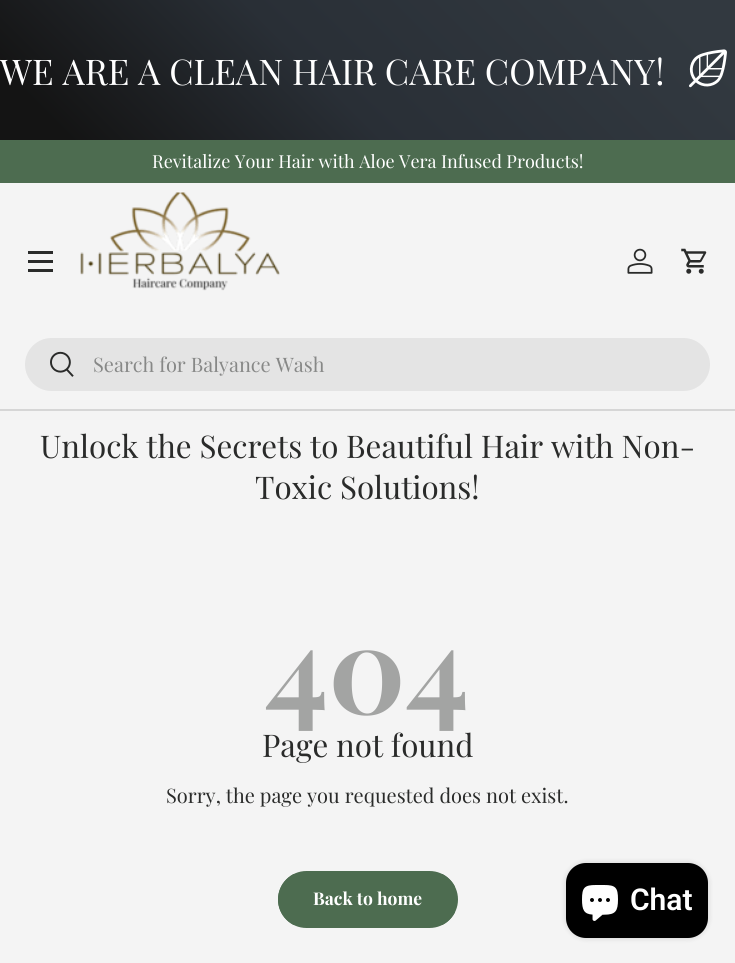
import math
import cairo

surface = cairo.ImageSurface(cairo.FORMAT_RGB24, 735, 963)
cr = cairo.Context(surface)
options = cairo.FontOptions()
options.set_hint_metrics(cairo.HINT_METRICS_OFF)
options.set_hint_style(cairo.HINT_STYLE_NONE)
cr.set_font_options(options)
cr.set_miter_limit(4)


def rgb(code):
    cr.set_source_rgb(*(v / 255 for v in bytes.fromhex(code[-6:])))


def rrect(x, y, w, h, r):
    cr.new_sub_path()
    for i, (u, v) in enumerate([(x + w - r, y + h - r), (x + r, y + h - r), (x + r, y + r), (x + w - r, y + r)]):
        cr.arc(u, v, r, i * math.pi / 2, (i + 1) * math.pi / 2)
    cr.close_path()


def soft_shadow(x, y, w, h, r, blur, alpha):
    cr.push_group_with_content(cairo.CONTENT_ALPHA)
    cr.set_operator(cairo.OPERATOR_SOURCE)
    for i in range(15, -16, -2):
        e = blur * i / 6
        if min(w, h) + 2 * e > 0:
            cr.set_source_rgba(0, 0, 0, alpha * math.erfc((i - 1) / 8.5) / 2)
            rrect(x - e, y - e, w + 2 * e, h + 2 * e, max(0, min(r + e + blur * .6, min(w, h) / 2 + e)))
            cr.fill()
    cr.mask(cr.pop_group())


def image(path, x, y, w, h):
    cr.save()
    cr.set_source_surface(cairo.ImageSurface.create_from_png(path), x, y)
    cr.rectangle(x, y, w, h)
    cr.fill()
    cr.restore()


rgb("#f4f4f4")
cr.paint()
gradient = cairo.LinearGradient(586, -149, 149, 289)
gradient.add_color_stop_rgba(0.08, 0.196, 0.224, 0.251, 1)
gradient.add_color_stop_rgba(0.56, 0.161, 0.184, 0.212, 1)
gradient.add_color_stop_rgba(0.92, 0.078, 0.078, 0.078, 1)
cr.set_source(gradient)
cr.rectangle(0, 0, 735, 140)
cr.fill()
image("img/1.png", 689, 49, 38, 39)
for x, y, w, h, color in [
    (0, 140, 735, 43, "#4d6c50"),
    (28, 251, 25, 3, "#2a2b2a"),
    (28, 269, 25, 3, "#2a2b2a"),
    (28, 260, 25, 3, "#2a2b2a"),
]:
    rgb(color)
    cr.rectangle(x, y, w, h)
    cr.fill()
image("img/2.png", 80, 192, 200, 99)
image("img/3.png", 627, 248, 26, 26)
image("img/4.png", 681, 248, 26, 26)
rgb("#e4e4e4")
rrect(25, 338, 685, 53, 26.5)
cr.fill()
image("img/5.png", 50, 351, 24, 26)
rgb("#d6d6d6")
cr.rectangle(0, 409, 735, 2)
cr.fill()
cr.save()
rrect(278, 871, 180, 57, 28.5)
cr.clip()
gradient = cairo.LinearGradient(-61, 836, 446, 962)
gradient.add_color_stop_rgba(0.6, 0.435, 0.545, 0.443, 1)
gradient.add_color_stop_rgba(0.6, 0.302, 0.424, 0.314, 1)
gradient.add_color_stop_rgba(1, 0.302, 0.424, 0.314, 1)
cr.set_source(gradient)
cr.rectangle(278, 874, 177, 51)
cr.fill()
cr.restore()
rrect(279.5, 872.5, 177, 54, 27)
rgb("#4d6c50")
cr.set_line_width(3)
cr.stroke()
rgb("#000000")
soft_shadow(566, 863, 142, 75, 20, 3, 0.15)
rgb("#000000")
rrect(566, 863, 142, 75, 20)
cr.fill()
image("img/6.png", 582, 885, 36, 36)
cr.select_font_face("Playfair Display")
cr.set_font_size(35.4)
rgb("#ffffff")
cr.move_to(0, 85)
cr.show_text("WE ARE A CLEAN HAIR CARE COMPANY!")
cr.set_font_size(18)
cr.move_to(152, 168)
cr.show_text("Revitalize Your Hair with Aloe Vera Infused Products!")
cr.set_font_size(20)
rgb("#878887")
cr.move_to(93, 372)
cr.show_text("Search for Balyance Wash")
cr.set_font_size(31.3)
rgb("#2a2b2a")
cr.move_to(40, 458)
cr.show_text("Unlock the Secrets to Beautiful Hair with Non-")
cr.move_to(255, 499)
cr.show_text("Toxic Solutions!")
cr.select_font_face("Playfair Display", cairo.FONT_SLANT_NORMAL, cairo.FONT_WEIGHT_BOLD)
cr.set_font_size(120)
rgb("#a3a4a3")
cr.move_to(265, 714)
cr.show_text("404")
cr.select_font_face("Playfair Display")
cr.set_font_size(31.3)
rgb("#2a2b2a")
cr.move_to(262, 757)
cr.show_text("Page not found")
cr.set_font_size(20)
cr.move_to(166, 803)
cr.show_text("Sorry, the page you requested does not exist.")
cr.select_font_face("Playfair Display", cairo.FONT_SLANT_NORMAL, cairo.FONT_WEIGHT_BOLD)
cr.set_font_size(17.5)
rgb("#ffffff")
cr.move_to(313, 905)
cr.show_text("Back to home")
cr.select_font_face("Roboto SemiBold")
cr.set_font_size(30)
cr.move_to(630, 910)
cr.show_text("Chat")
surface.write_to_png("page.png")
